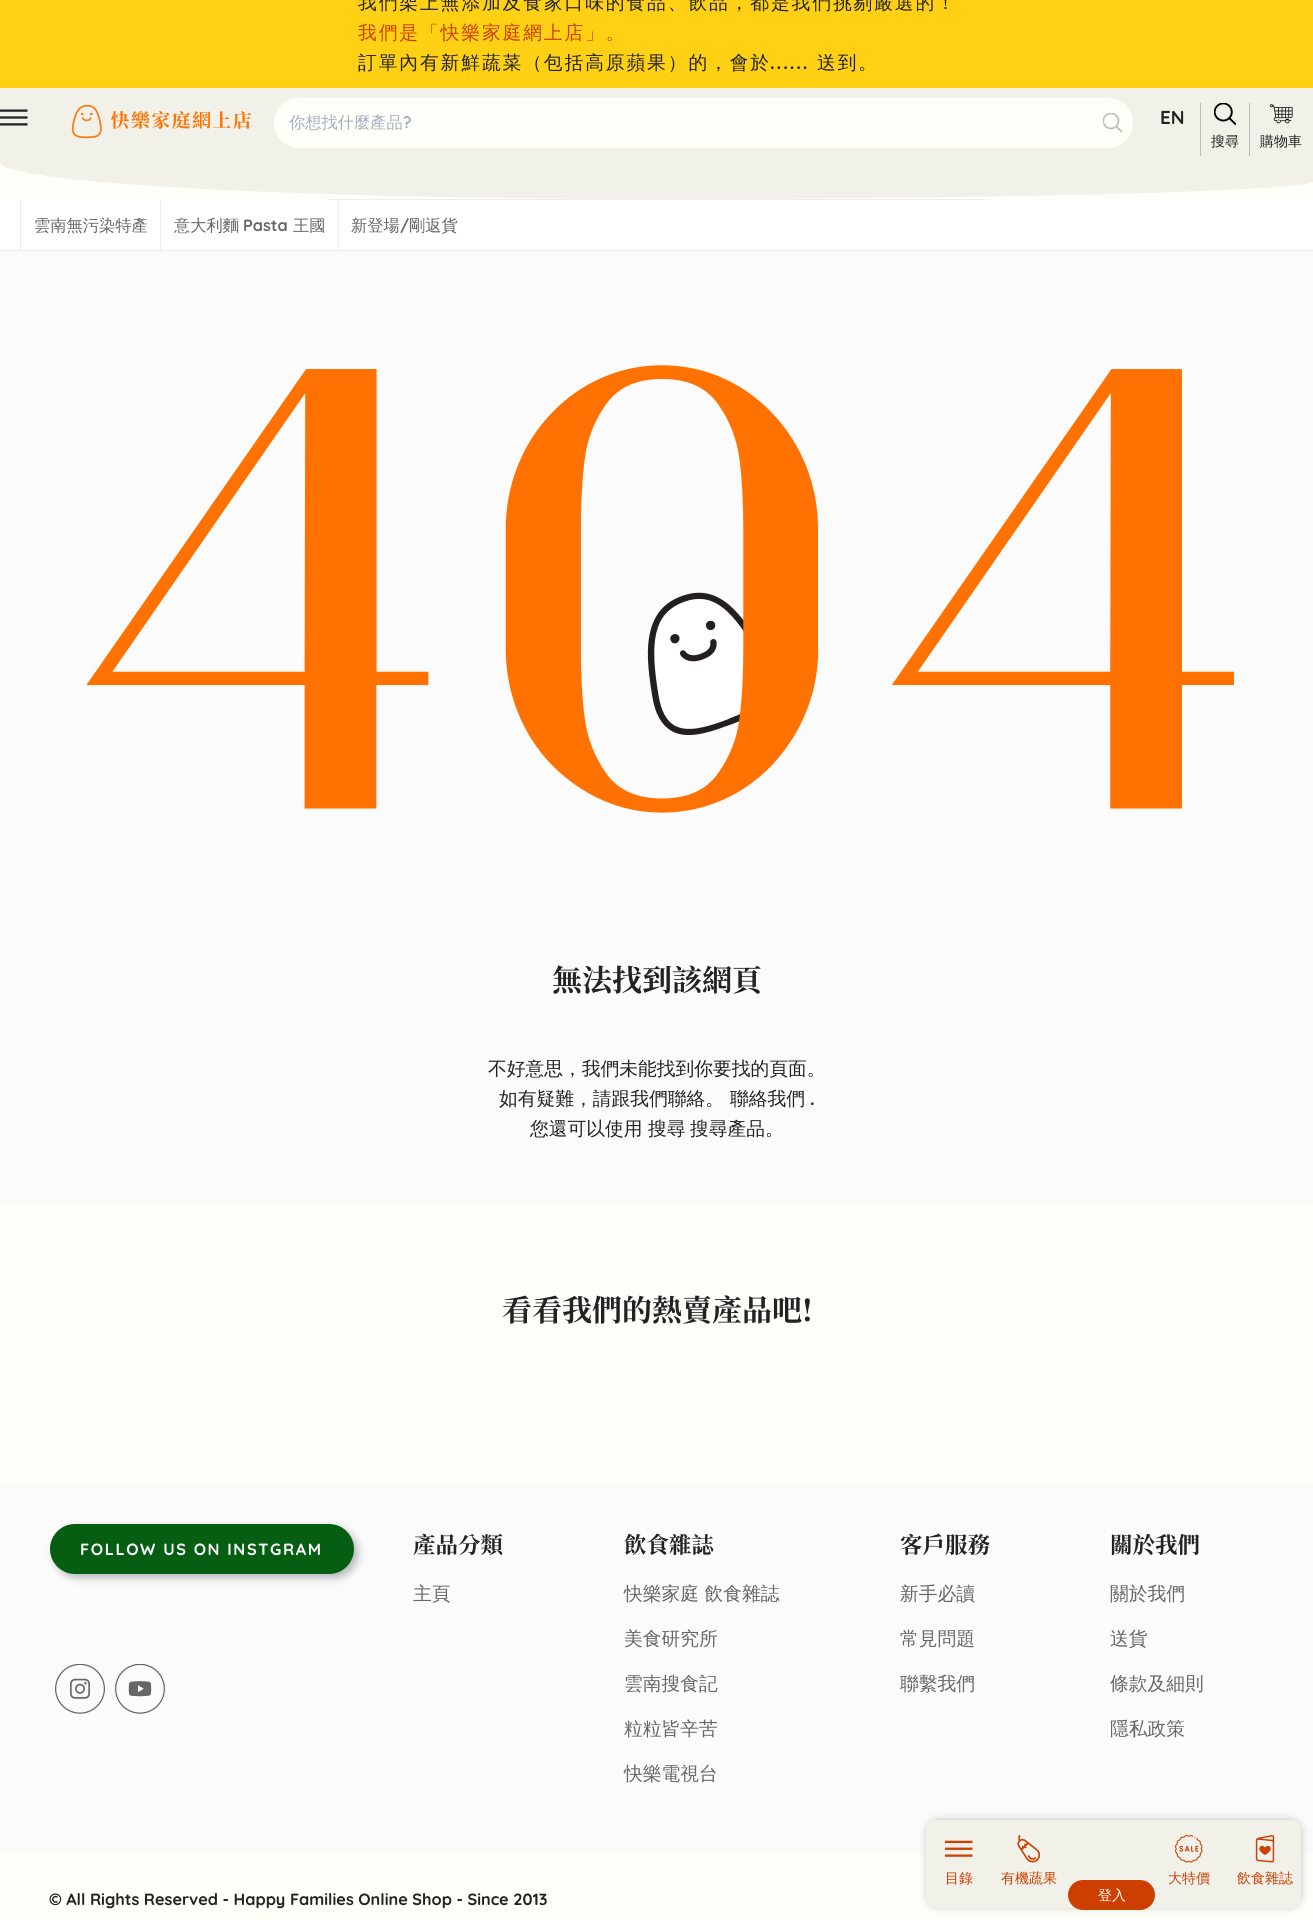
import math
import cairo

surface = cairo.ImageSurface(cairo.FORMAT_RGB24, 1313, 1920)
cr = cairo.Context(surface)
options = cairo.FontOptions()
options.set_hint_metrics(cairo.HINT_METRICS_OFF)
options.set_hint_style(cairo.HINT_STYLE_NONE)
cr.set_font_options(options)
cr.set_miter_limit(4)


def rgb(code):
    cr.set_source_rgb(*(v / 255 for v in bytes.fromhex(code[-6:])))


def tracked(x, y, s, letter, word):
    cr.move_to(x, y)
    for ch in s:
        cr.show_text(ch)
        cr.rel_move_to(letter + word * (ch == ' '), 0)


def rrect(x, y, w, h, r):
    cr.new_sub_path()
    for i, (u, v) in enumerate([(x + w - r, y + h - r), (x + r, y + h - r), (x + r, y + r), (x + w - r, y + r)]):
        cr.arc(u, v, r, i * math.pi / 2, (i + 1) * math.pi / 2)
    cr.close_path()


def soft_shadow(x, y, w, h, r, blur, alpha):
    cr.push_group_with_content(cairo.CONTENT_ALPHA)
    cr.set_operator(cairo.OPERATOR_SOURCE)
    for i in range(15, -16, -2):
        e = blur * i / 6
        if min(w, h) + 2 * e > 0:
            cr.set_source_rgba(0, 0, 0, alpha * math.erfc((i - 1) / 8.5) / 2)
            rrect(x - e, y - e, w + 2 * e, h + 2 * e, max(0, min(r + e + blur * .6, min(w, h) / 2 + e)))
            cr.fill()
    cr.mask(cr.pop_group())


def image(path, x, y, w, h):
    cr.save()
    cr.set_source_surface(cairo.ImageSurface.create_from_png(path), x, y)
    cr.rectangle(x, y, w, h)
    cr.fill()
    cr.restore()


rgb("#fffffa")
cr.paint()
rgb("#ffd014")
cr.rectangle(0, 0, 1313, 88)
cr.fill()
rgb("#f1f1e9")
cr.new_path()
cr.move_to(0, 88)
cr.line_to(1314, 88)
cr.line_to(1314, 181)
cr.curve_to(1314, 191, 1020, 199, 657, 199)
cr.curve_to(294, 199, 0, 183, 0, 162)
cr.close_path()
cr.fill()
rgb("#ededed")
cr.rectangle(329, 199, 656, 1)
cr.fill()
image("img/1.png", 0, 109, 28, 17)
image("img/2.png", 71, 104, 180, 35)
rgb("#fffffa")
rrect(274, 98, 859, 50, 25)
cr.fill()
image("img/3.png", 1103, 113, 20, 20)
rgb("#bdbdbd")
cr.rectangle(1200, 103, 1, 53)
cr.fill()
image("img/4.png", 1214, 103, 22, 22)
cr.rectangle(1249, 103, 1, 53)
cr.fill()
image("img/5.png", 1270, 104, 23, 20)
for x, y, w, h, color in [
    (0, 200, 1313, 50, "#ffffff"),
    (0, 250, 1313, 1, "#ededed"),
    (20, 200, 1, 50, "#ededed"),
    (160, 200, 1, 50, "#ededed"),
    (338, 200, 1, 50, "#ededed"),
    (0, 251, 1313, 953, "#fbfbfb"),
]:
    rgb(color)
    cr.rectangle(x, y, w, h)
    cr.fill()
image("img/6.png", 86, 365, 1148, 448)
cr.rectangle(0, 1484, 1313, 370)
cr.fill()
rgb("#b8b9be")
soft_shadow(54, 1528, 304, 50, 25, 4, 1)
rgb("#065e13")
rrect(50, 1524, 304, 50, 25)
cr.fill()
image("img/7.png", 55, 1664, 50, 50)
image("img/8.png", 115, 1664, 50, 50)
rgb("#333333")
soft_shadow(933, 1826, 362, 75, 4, 6, 1)
rgb("#f1f1e9")
rrect(926, 1820, 375, 88, 10)
cr.fill()
image("img/9.png", 945, 1840, 28, 17)
image("img/10.png", 1017, 1835, 24, 28)
image("img/11.png", 1175, 1835, 28, 28)
image("img/12.png", 1255, 1835, 20, 28)
rgb("#cc3f00")
rrect(1068, 1880, 87, 30, 15)
cr.fill()
cr.select_font_face("WenQuanYi Zen Hei Medium")
cr.set_font_size(18.75)
rgb("#222222")
tracked(358, 9, "我們架上無添加及食家口味的食品、飲品，都是我們挑剔嚴選的！", 1.9, 0)
rgb("#cc3f00")
tracked(358, 39, "我們是「快樂家庭網上店」。", 1.9, 0)
rgb("#222222")
tracked(358, 69, "訂單內有新鮮蔬菜（包括高原蘋果）的，會於", 1.9, 0)
cr.select_font_face("Quicksand Light")
tracked(770, 69, "......", 1.9, 0)
cr.select_font_face("WenQuanYi Zen Hei Medium")
tracked(817, 69, "送到。", 1.9, 0)
cr.set_font_size(16.25)
rgb("#a0aec0")
cr.move_to(289, 128)
cr.show_text("你想找什麼產品")
cr.select_font_face("Quicksand Light")
cr.move_to(403, 128)
cr.show_text("?")
cr.set_font_size(18.75)
rgb("#222222")
cr.move_to(1160, 124)
cr.show_text("EN")
cr.select_font_face("WenQuanYi Zen Hei Medium")
cr.set_font_size(14)
cr.move_to(1211, 146)
cr.show_text("搜尋")
cr.move_to(1260, 146)
cr.show_text("購物車")
cr.set_font_size(16.25)
rgb("#666666")
cr.move_to(34, 231)
cr.show_text("雲南無污染特產")
cr.move_to(174, 231)
cr.show_text("意大利麵")
cr.select_font_face("Quicksand Light")
cr.move_to(243, 231)
cr.show_text("Pasta")
cr.select_font_face("WenQuanYi Zen Hei Medium")
cr.move_to(293, 231)
cr.show_text("王國")
cr.move_to(351, 231)
cr.show_text("新登場")
cr.select_font_face("Quicksand Light")
cr.move_to(400, 231)
cr.show_text("/")
cr.select_font_face("WenQuanYi Zen Hei Medium")
cr.move_to(409, 231)
cr.show_text("剛返貨")
cr.select_font_face("Noto Serif TC ExtraLight")
cr.set_font_size(30)
rgb("#222222")
cr.move_to(552, 991)
cr.show_text("無法找到該網頁")
cr.select_font_face("WenQuanYi Zen Hei Medium")
cr.set_font_size(18.75)
for x, y, s in [
    (488, 1075, "不好意思，我們未能找到你要找的頁面。"),
    (499, 1105, "如有疑難，請跟我們聯絡。"),
    (730, 1105, "聯絡我們"),
]:
    cr.move_to(x, y)
    cr.show_text(s)
cr.select_font_face("Quicksand Light")
cr.move_to(810, 1105)
cr.show_text(".")
cr.select_font_face("WenQuanYi Zen Hei Medium")
for x, y, s in [
    (530, 1135, "您還可以使用"),
    (648, 1135, "搜尋"),
    (690, 1135, "搜尋產品。"),
]:
    cr.move_to(x, y)
    cr.show_text(s)
cr.select_font_face("Noto Serif TC ExtraLight")
cr.set_font_size(30)
cr.move_to(502, 1321)
cr.show_text("看看我們的熱賣產品吧!")
cr.select_font_face("Quicksand Light")
cr.set_font_size(16.25)
rgb("#ffffff")
tracked(80, 1555, "FOLLOW US ON INSTGRAM", 1.6, 0)
cr.select_font_face("Noto Serif TC ExtraLight")
cr.set_font_size(22.5)
rgb("#222222")
cr.move_to(413, 1553)
cr.show_text("產品分類")
cr.select_font_face("WenQuanYi Zen Hei Medium")
cr.set_font_size(18.75)
rgb("#666666")
cr.move_to(413, 1600)
cr.show_text("主頁")
cr.select_font_face("Noto Serif TC ExtraLight")
cr.set_font_size(22.5)
rgb("#222222")
cr.move_to(624, 1553)
cr.show_text("飲食雜誌")
cr.select_font_face("WenQuanYi Zen Hei Medium")
cr.set_font_size(18.75)
rgb("#666666")
for x, y, s in [
    (624, 1600, "快樂家庭 飲食雜誌"),
    (624, 1645, "美食研究所"),
    (624, 1690, "雲南搜食記"),
    (624, 1735, "粒粒皆辛苦"),
    (624, 1780, "快樂電視台"),
]:
    cr.move_to(x, y)
    cr.show_text(s)
cr.select_font_face("Noto Serif TC ExtraLight")
cr.set_font_size(22.5)
rgb("#222222")
cr.move_to(900, 1553)
cr.show_text("客戶服務")
cr.select_font_face("WenQuanYi Zen Hei Medium")
cr.set_font_size(18.75)
rgb("#666666")
for x, y, s in [
    (900, 1600, "新手必讀"),
    (900, 1645, "常見問題"),
    (900, 1690, "聯繫我們"),
]:
    cr.move_to(x, y)
    cr.show_text(s)
cr.select_font_face("Noto Serif TC ExtraLight")
cr.set_font_size(22.5)
rgb("#222222")
cr.move_to(1110, 1553)
cr.show_text("關於我們")
cr.select_font_face("WenQuanYi Zen Hei Medium")
cr.set_font_size(18.75)
rgb("#666666")
for x, y, s in [
    (1110, 1600, "關於我們"),
    (1110, 1645, "送貨"),
    (1110, 1690, "條款及細則"),
    (1110, 1735, "隱私政策"),
]:
    cr.move_to(x, y)
    cr.show_text(s)
cr.select_font_face("Quicksand Light")
cr.set_font_size(16.25)
rgb("#222222")
cr.move_to(49, 1905)
cr.show_text("© All Rights Reserved - Happy Families Online Shop - Since 2013")
cr.select_font_face("WenQuanYi Zen Hei Medium")
cr.set_font_size(14)
rgb("#cc3f00")
for x, y, s in [
    (945, 1883, "目錄"),
    (1001, 1883, "有機蔬果"),
    (1168, 1883, "大特價"),
    (1237, 1883, "飲食雜誌"),
]:
    cr.move_to(x, y)
    cr.show_text(s)
rgb("#ffffff")
cr.move_to(1098, 1900)
cr.show_text("登入")
surface.write_to_png("page.png")
